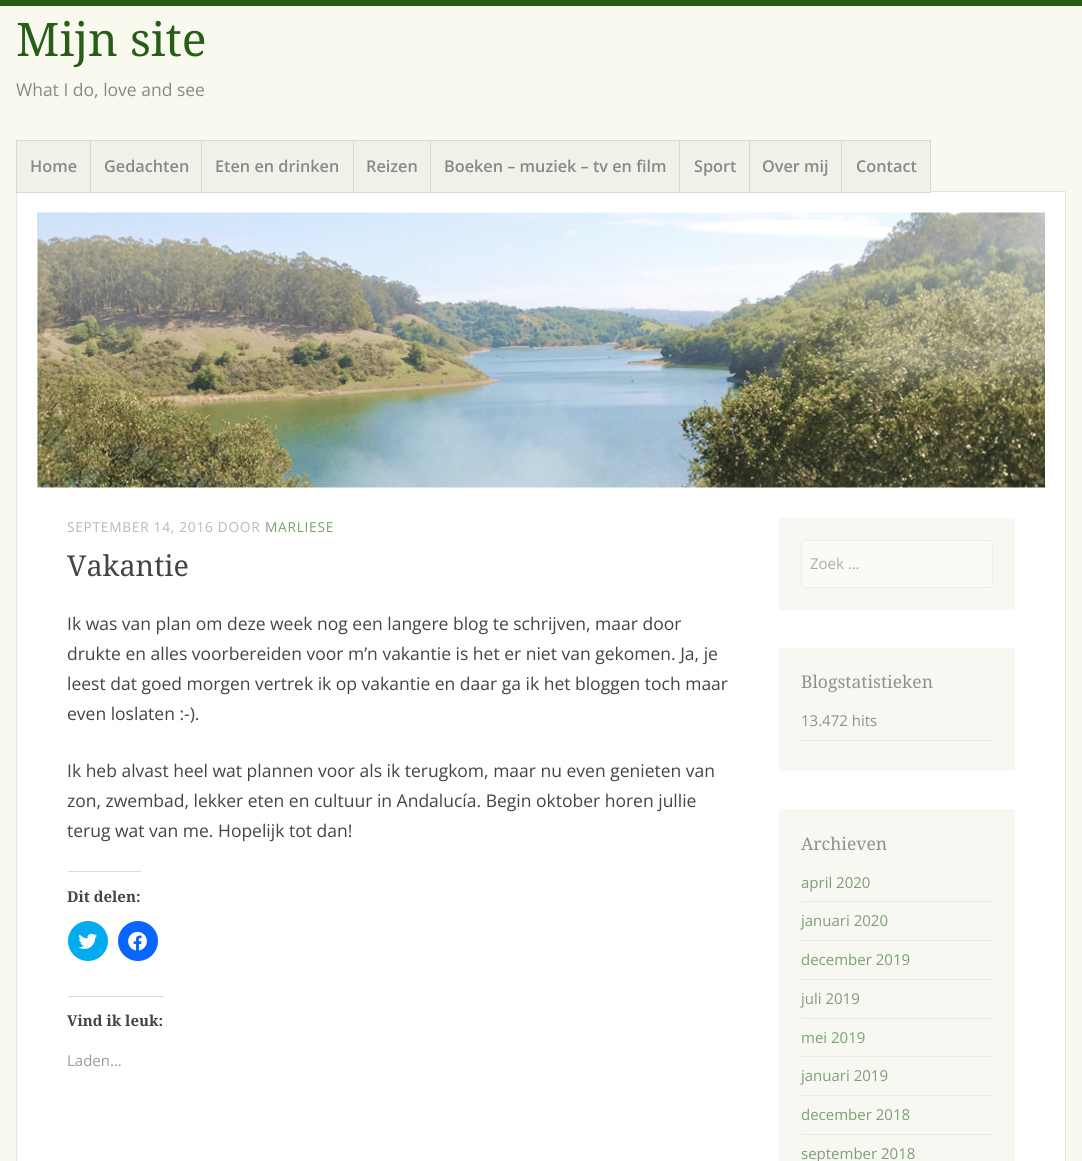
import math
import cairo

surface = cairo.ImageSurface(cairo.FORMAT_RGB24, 1082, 1161)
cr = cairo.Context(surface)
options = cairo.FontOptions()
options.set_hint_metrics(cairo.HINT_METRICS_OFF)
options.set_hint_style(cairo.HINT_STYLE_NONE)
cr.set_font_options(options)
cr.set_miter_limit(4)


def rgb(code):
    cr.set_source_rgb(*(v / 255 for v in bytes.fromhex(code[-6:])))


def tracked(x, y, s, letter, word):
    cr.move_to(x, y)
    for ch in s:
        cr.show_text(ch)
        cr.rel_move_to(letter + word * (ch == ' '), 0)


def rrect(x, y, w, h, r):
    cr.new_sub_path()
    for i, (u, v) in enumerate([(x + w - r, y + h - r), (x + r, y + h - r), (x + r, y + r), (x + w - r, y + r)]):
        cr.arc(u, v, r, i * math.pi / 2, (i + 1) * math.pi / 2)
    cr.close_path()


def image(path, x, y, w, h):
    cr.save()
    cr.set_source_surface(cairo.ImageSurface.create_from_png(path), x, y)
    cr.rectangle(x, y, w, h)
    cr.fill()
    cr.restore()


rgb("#f9f9f0")
cr.paint()
rgb("#265e15")
cr.rectangle(0, 0, 1082, 6)
cr.fill()
rgb("#ffffff")
cr.rectangle(16.5, 191.5, 1049, 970)
cr.fill_preserve()
rgb("#e6e6e6")
cr.set_line_width(1)
cr.stroke()
rgb("#f1f1e9")
cr.rectangle(16.5, 140.5, 74, 52)
cr.fill_preserve()
rgb("#d9d9d2")
cr.stroke()
rgb("#f1f1e9")
cr.rectangle(91, 141, 110, 51)
cr.fill()
cr.rectangle(90.5, 140.5, 113, 52)
rgb("#d9d9d2")
cr.stroke()
rgb("#f1f1e9")
cr.rectangle(201.5, 140.5, 152, 52)
cr.fill_preserve()
rgb("#d9d9d2")
cr.stroke()
rgb("#f1f1e9")
cr.rectangle(354, 141, 76, 51)
cr.fill()
cr.rectangle(353.5, 140.5, 79, 52)
rgb("#d9d9d2")
cr.stroke()
rgb("#f1f1e9")
cr.rectangle(431, 141, 248, 51)
cr.fill()
cr.rectangle(430.5, 140.5, 250, 52)
rgb("#d9d9d2")
cr.stroke()
rgb("#f1f1e9")
cr.rectangle(679.5, 140.5, 70, 52)
cr.fill_preserve()
rgb("#d9d9d2")
cr.stroke()
rgb("#f1f1e9")
cr.rectangle(750, 141, 91, 51)
cr.fill()
cr.rectangle(749.5, 140.5, 94, 52)
rgb("#d9d9d2")
cr.stroke()
rgb("#f1f1e9")
cr.rectangle(841.5, 140.5, 89, 52)
cr.fill_preserve()
rgb("#d9d9d2")
cr.stroke()
image("img/1.png", 37, 212, 1008, 276)
rgb("#dcdcde")
cr.rectangle(68, 871, 73, 1)
cr.fill()
rgb("#00acee")
cr.arc(88, 941, 20, 0, 2 * math.pi)
cr.fill()
image("img/2.png", 78, 933, 19, 16)
rgb("#0866ff")
cr.arc(138, 941, 20, 0, 2 * math.pi)
cr.fill()
image("img/3.png", 128, 931, 19, 20)
rgb("#dcdcde")
cr.rectangle(68, 996, 96, 1)
cr.fill()
rgb("#f8f8f3")
cr.rectangle(779, 518, 236, 92)
cr.fill()
rgb("#fbfbf6")
rrect(801.5, 540.5, 191, 47, 2)
cr.fill_preserve()
rgb("#ecece8")
cr.stroke()
for x, y, w, h, color in [
    (779, 648, 236, 123, "#f8f8f3"),
    (801, 740, 192, 1, "#e9e9e5"),
    (779, 809, 236, 352, "#f8f8f3"),
    (801, 901, 192, 1, "#e9e9e5"),
    (801, 940, 192, 1, "#e9e9e5"),
    (801, 979, 192, 1, "#e9e9e5"),
    (801, 1018, 192, 1, "#e9e9e5"),
    (801, 1056, 192, 1, "#e9e9e5"),
    (801, 1095, 192, 1, "#e9e9e5"),
    (801, 1134, 192, 1, "#e9e9e5"),
]:
    rgb(color)
    cr.rectangle(x, y, w, h)
    cr.fill()
cr.select_font_face("Droid Serif")
cr.set_font_size(46.25)
rgb("#265e15")
cr.move_to(16, 56)
cr.show_text("Mijn site")
cr.select_font_face("Open Sans")
cr.set_font_size(17.5)
rgb("#888888")
cr.move_to(16, 96)
cr.show_text("What I do, love and see")
cr.select_font_face("Open Sans SemiBold")
cr.set_font_size(16.25)
for x, y, s in [
    (30, 172, "Home"),
    (104, 172, "Gedachten"),
    (215, 172, "Eten en drinken"),
    (366, 172, "Reizen"),
    (444, 172, "Boeken – muziek – tv en film"),
    (694, 172, "Sport"),
    (762, 172, "Over mij"),
    (856, 172, "Contact"),
]:
    cr.move_to(x, y)
    cr.show_text(s)
cr.select_font_face("Open Sans")
cr.set_font_size(13.75)
rgb("#b8b8b8")
tracked(67, 532, "SEPTEMBER 14, 2016 DOOR", 0.7, 0)
rgb("#7d9e73")
tracked(265, 532, "MARLIESE", 0.7, 0)
cr.select_font_face("Droid Serif")
cr.set_font_size(28.75)
rgb("#444444")
cr.move_to(67, 576)
cr.show_text("Vakantie")
cr.select_font_face("Open Sans")
cr.set_font_size(17.5)
for x, y, s in [
    (67, 630, "Ik was van plan om deze week nog een langere blog te schrijven, maar door"),
    (67, 660, "drukte en alles voorbereiden voor m’n vakantie is het er niet van gekomen. Ja, je"),
    (67, 690, "leest dat goed morgen vertrek ik op vakantie en daar ga ik het bloggen toch maar"),
    (67, 720, "even loslaten :-)."),
    (67, 777, "Ik heb alvast heel wat plannen voor als ik terugkom, maar nu even genieten van"),
    (67, 807, "zon, zwembad, lekker eten en cultuur in Andalucía. Begin oktober horen jullie"),
    (67, 837, "terug wat van me. Hopelijk tot dan!"),
]:
    cr.move_to(x, y)
    cr.show_text(s)
cr.select_font_face("Droid Serif", cairo.FONT_SLANT_NORMAL, cairo.FONT_WEIGHT_BOLD)
cr.set_font_size(15)
cr.move_to(67, 902)
cr.show_text("Dit delen:")
cr.move_to(67, 1026)
cr.show_text("Vind ik leuk:")
cr.select_font_face("Open Sans")
rgb("#999999")
cr.move_to(67, 1066)
cr.show_text("Laden...")
rgb("#acacac")
cr.move_to(810, 569)
cr.show_text("Zoek …")
cr.select_font_face("Droid Serif")
cr.set_font_size(17.5)
rgb("#8f8f8f")
cr.move_to(801, 688)
cr.show_text("Blogstatistieken")
cr.select_font_face("Open Sans")
cr.set_font_size(15)
cr.move_to(801, 726)
cr.show_text("13.472 hits")
cr.select_font_face("Droid Serif")
cr.set_font_size(17.5)
cr.move_to(801, 850)
cr.show_text("Archieven")
cr.select_font_face("Open Sans")
cr.set_font_size(15)
rgb("#7d9e73")
for x, y, s in [
    (801, 888, "april 2020"),
    (801, 926, "januari 2020"),
    (801, 965, "december 2019"),
    (801, 1004, "juli 2019"),
    (801, 1043, "mei 2019"),
    (801, 1081, "januari 2019"),
    (801, 1120, "december 2018"),
    (801, 1159, "september 2018"),
]:
    cr.move_to(x, y)
    cr.show_text(s)
surface.write_to_png("page.png")
